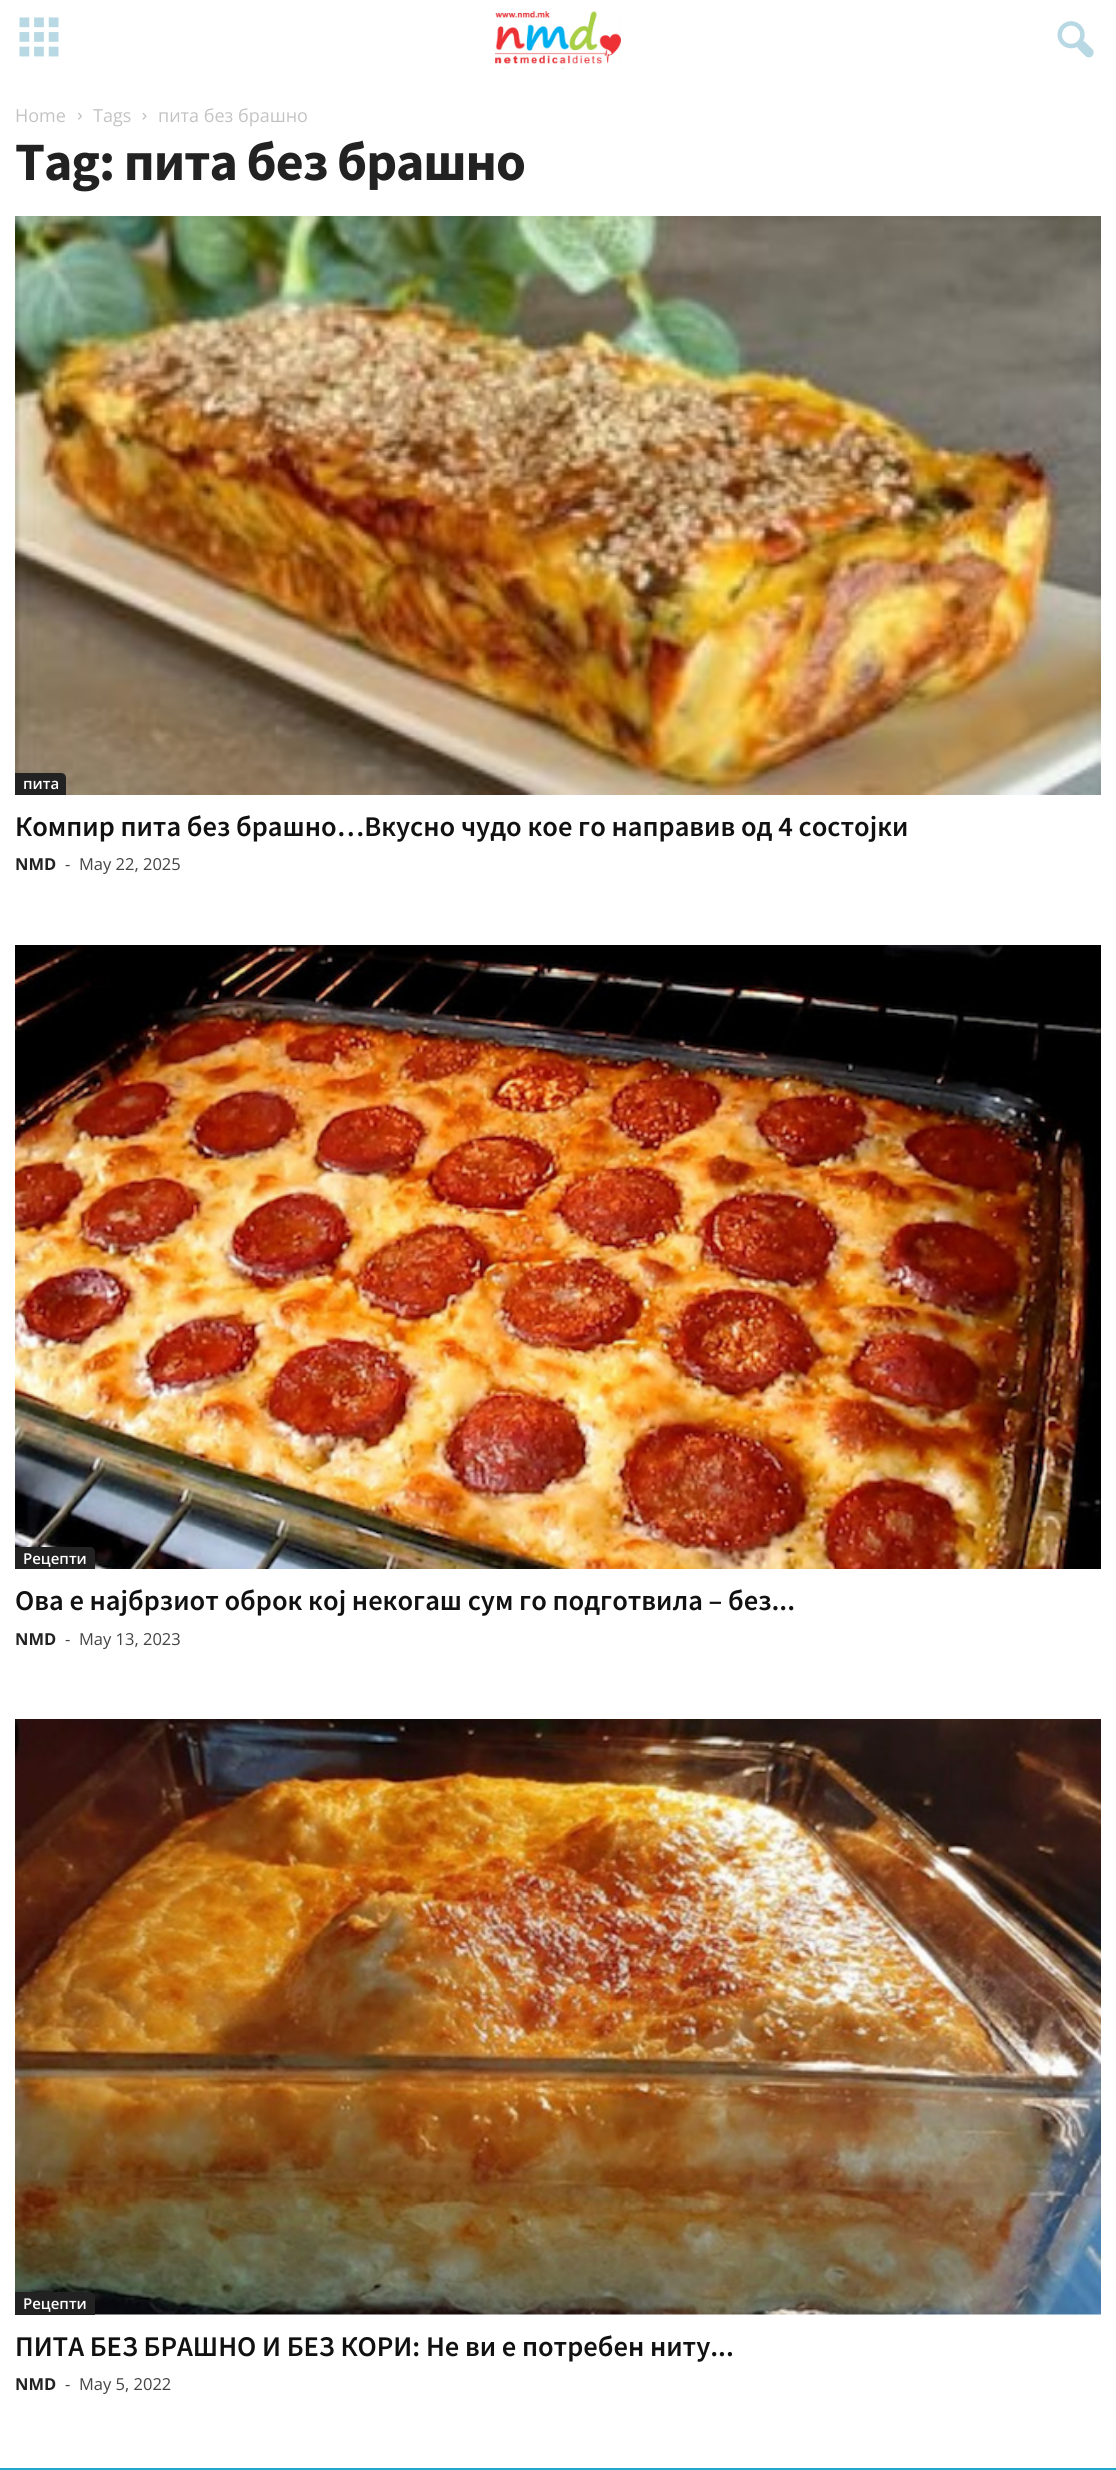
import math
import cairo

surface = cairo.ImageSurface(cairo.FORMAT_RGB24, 1116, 2470)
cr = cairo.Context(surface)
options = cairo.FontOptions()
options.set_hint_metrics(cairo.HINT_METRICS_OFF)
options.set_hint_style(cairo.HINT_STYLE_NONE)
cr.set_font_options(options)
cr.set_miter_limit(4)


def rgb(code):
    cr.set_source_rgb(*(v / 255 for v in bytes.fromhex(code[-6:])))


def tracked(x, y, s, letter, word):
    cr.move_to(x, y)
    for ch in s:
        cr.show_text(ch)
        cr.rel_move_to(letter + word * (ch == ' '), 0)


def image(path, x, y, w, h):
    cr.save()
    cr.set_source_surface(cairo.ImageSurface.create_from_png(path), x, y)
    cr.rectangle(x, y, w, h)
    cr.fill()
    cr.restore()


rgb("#ffffff")
cr.paint()
image("img/1.png", 19, 17, 40, 40)
image("img/2.png", 495, 10, 126, 59)
image("img/3.png", 1057, 21, 37, 37)
image("img/4.png", 78, 112, 4, 8)
image("img/5.png", 142, 112, 5, 8)
image("img/6.png", 15, 216, 1086, 579)
rgb("#222222")
cr.new_path()
cr.move_to(15, 773)
cr.line_to(61, 773)
cr.curve_to(64, 773, 66, 775, 66, 778)
cr.line_to(66, 795)
cr.line_to(15, 795)
cr.close_path()
cr.fill()
image("img/7.png", 15, 945, 1086, 624)
cr.new_path()
cr.move_to(15, 1547)
cr.line_to(90, 1547)
cr.curve_to(93, 1547, 95, 1549, 95, 1552)
cr.line_to(95, 1569)
cr.line_to(15, 1569)
cr.close_path()
cr.fill()
image("img/8.png", 15, 1719, 1086, 596)
cr.new_path()
cr.move_to(15, 2292)
cr.line_to(90, 2292)
cr.curve_to(93, 2292, 95, 2294, 95, 2297)
cr.line_to(95, 2315)
cr.line_to(15, 2315)
cr.close_path()
cr.fill()
rgb("#20a7c9")
cr.rectangle(0, 2468, 1116, 2)
cr.fill()
cr.select_font_face("Open Sans")
cr.set_font_size(18)
rgb("#c3c3c3")
for x, y, s in [
    (15, 122, "Home"),
    (93, 122, "Tags"),
    (158, 122, "пита без брашно"),
]:
    cr.move_to(x, y)
    cr.show_text(s)
cr.select_font_face("Source Sans Pro", cairo.FONT_SLANT_NORMAL, cairo.FONT_WEIGHT_BOLD)
cr.set_font_size(54)
rgb("#222222")
tracked(15, 180, "Tag: пита без брашно", -1.1, 0)
cr.select_font_face("Open Sans SemiBold")
cr.set_font_size(15)
rgb("#ffffff")
cr.move_to(23, 789)
cr.show_text("пита")
cr.select_font_face("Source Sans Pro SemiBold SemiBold")
cr.set_font_size(28.5)
rgb("#111111")
cr.move_to(15, 836)
cr.show_text("Компир пита без брашно…Вкусно чудо кое го направив од 4 состојки")
cr.select_font_face("Open Sans", cairo.FONT_SLANT_NORMAL, cairo.FONT_WEIGHT_BOLD)
cr.set_font_size(16.5)
rgb("#222222")
cr.move_to(15, 870)
cr.show_text("NMD")
cr.select_font_face("Open Sans")
rgb("#444444")
cr.move_to(65, 870)
cr.show_text("-")
cr.move_to(79, 870)
cr.show_text("May 22, 2025")
cr.select_font_face("Open Sans SemiBold")
cr.set_font_size(15)
rgb("#ffffff")
cr.move_to(23, 1564)
cr.show_text("Рецепти")
cr.select_font_face("Source Sans Pro SemiBold SemiBold")
cr.set_font_size(28.5)
rgb("#111111")
cr.move_to(15, 1610)
cr.show_text("Ова е најбрзиот оброк кој некогаш сум го подготвила – без...")
cr.select_font_face("Open Sans", cairo.FONT_SLANT_NORMAL, cairo.FONT_WEIGHT_BOLD)
cr.set_font_size(16.5)
rgb("#222222")
cr.move_to(15, 1645)
cr.show_text("NMD")
cr.select_font_face("Open Sans")
rgb("#444444")
cr.move_to(65, 1645)
cr.show_text("-")
cr.move_to(79, 1645)
cr.show_text("May 13, 2023")
cr.select_font_face("Open Sans SemiBold")
cr.set_font_size(15)
rgb("#ffffff")
cr.move_to(23, 2309)
cr.show_text("Рецепти")
cr.select_font_face("Source Sans Pro SemiBold SemiBold")
cr.set_font_size(28.5)
rgb("#111111")
cr.move_to(15, 2356)
cr.show_text("ПИТА БЕЗ БРАШНО И БЕЗ КОРИ: Не ви е потребен ниту...")
cr.select_font_face("Open Sans", cairo.FONT_SLANT_NORMAL, cairo.FONT_WEIGHT_BOLD)
cr.set_font_size(16.5)
rgb("#222222")
cr.move_to(15, 2390)
cr.show_text("NMD")
cr.select_font_face("Open Sans")
rgb("#444444")
cr.move_to(65, 2390)
cr.show_text("-")
cr.move_to(79, 2390)
cr.show_text("May 5, 2022")
surface.write_to_png("page.png")
